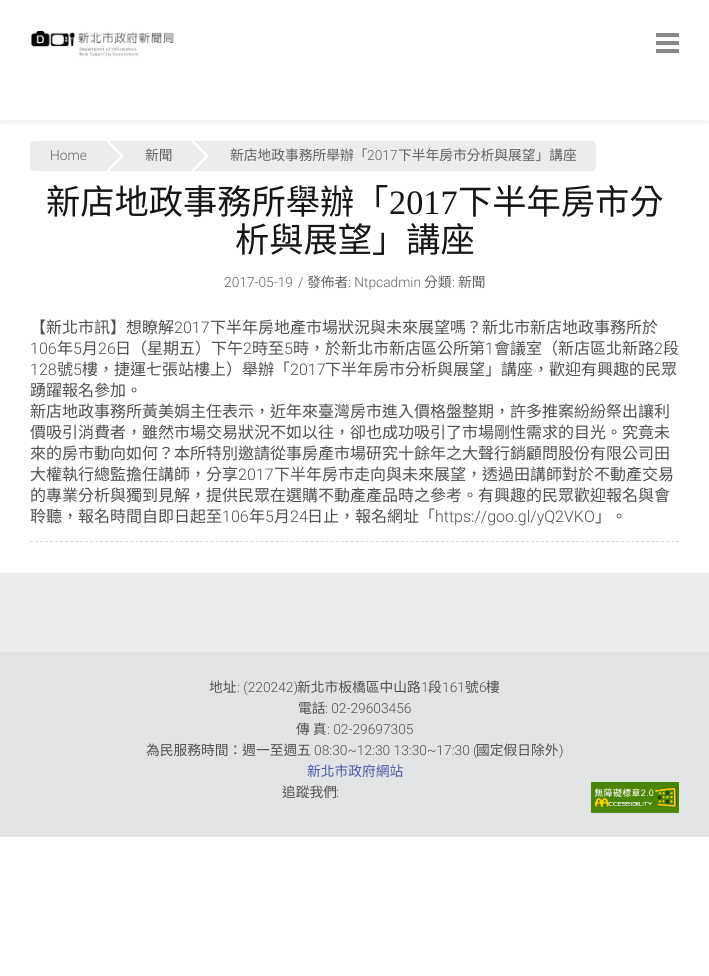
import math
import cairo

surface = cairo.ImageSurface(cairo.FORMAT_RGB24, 709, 976)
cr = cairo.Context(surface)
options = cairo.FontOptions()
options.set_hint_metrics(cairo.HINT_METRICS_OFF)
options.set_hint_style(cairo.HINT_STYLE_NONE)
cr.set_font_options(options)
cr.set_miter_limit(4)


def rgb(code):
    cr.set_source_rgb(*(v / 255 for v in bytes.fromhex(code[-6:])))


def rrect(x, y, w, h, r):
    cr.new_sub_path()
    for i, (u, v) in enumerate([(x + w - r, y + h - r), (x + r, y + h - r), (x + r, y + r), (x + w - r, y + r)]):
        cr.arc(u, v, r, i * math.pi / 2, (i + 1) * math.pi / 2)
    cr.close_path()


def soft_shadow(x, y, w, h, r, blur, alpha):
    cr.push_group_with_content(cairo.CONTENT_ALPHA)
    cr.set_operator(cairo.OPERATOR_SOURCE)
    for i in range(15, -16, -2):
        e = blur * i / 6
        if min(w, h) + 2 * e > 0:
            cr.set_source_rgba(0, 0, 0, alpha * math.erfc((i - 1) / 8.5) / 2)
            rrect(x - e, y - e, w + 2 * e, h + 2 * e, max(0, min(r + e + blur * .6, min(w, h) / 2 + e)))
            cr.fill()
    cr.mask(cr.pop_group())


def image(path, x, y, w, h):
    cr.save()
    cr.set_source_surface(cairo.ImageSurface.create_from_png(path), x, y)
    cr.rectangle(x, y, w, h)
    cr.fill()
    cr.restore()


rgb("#ffffff")
cr.paint()
image("img/1.png", 31, 31, 143, 26)
image("img/2.png", 656, 33, 23, 20)
cr.save()
cr.rectangle(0, 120, 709, 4)
cr.clip()
rgb("#000000")
soft_shadow(0, 116, 709, 8, 0, 1.5, 0.04)
cr.restore()
rgb("#ebecee")
cr.new_path()
cr.move_to(35, 141)
cr.line_to(125, 141)
cr.line_to(125, 171)
cr.line_to(35, 171)
cr.curve_to(32, 171, 30, 169, 30, 166)
cr.line_to(30, 146)
cr.curve_to(30, 143, 32, 141, 35, 141)
cr.close_path()
cr.fill()
image("img/3.png", 106, 141, 18, 30)
cr.rectangle(125, 141, 85, 30)
cr.fill()
image("img/3.png", 191, 141, 18, 30)
cr.new_path()
cr.move_to(210, 141)
cr.line_to(591, 141)
cr.curve_to(594, 141, 596, 143, 596, 146)
cr.line_to(596, 166)
cr.curve_to(596, 169, 594, 171, 591, 171)
cr.line_to(210, 171)
cr.close_path()
cr.fill()
cr.new_path()
cr.move_to(30, 541.5)
cr.line_to(679, 541.5)
rgb("#d9d9d9")
cr.set_line_width(1)
cr.set_dash([3, 2.01])
cr.stroke()
rgb("#e2e3e4")
cr.rectangle(0, 652, 709, 185)
cr.fill()
rgb("#ebecee")
cr.rectangle(0, 573, 709, 79)
cr.fill()
image("img/4.png", 591, 782, 88, 31)
cr.select_font_face("Roboto Light")
cr.set_font_size(13.75)
rgb("#616161")
cr.move_to(50, 160)
cr.show_text("Home")
cr.select_font_face("Noto Sans CJK TC")
cr.move_to(145, 160)
cr.show_text("新聞")
cr.move_to(230, 160)
cr.show_text("新店地政事務所舉辦「")
cr.select_font_face("Roboto Light")
cr.move_to(367, 160)
cr.show_text("2017")
cr.select_font_face("Noto Sans CJK TC")
cr.move_to(398, 160)
cr.show_text("下半年房市分析與展望」講座")
cr.set_font_size(34.25)
rgb("#161616")
cr.move_to(46, 214)
cr.show_text("新店地政事務所舉辦「")
cr.select_font_face("Liberation Serif")
cr.move_to(389, 214)
cr.show_text("2017")
cr.select_font_face("Noto Sans CJK TC")
cr.move_to(458, 214)
cr.show_text("下半年房市分")
cr.move_to(235, 252)
cr.show_text("析與展望」講座")
cr.select_font_face("Roboto Light")
cr.set_font_size(13.75)
rgb("#616161")
cr.move_to(224, 287)
cr.show_text("2017-05-19")
cr.move_to(298, 287)
cr.show_text("/")
cr.select_font_face("Noto Sans CJK TC")
cr.move_to(307, 287)
cr.show_text("發佈者")
cr.select_font_face("Roboto Light")
cr.move_to(348, 287)
cr.show_text(": Ntpcadmin")
cr.select_font_face("Noto Sans CJK TC")
cr.move_to(424, 287)
cr.show_text("分類")
cr.select_font_face("Roboto Light")
cr.move_to(452, 287)
cr.show_text(":")
cr.select_font_face("Noto Sans CJK TC")
cr.move_to(458, 287)
cr.show_text("新聞")
cr.set_font_size(16)
rgb("#505050")
cr.move_to(30, 333)
cr.show_text("【新北市訊】想瞭解")
cr.select_font_face("Roboto Light")
cr.move_to(174, 333)
cr.show_text("2017")
cr.select_font_face("Noto Sans CJK TC")
cr.move_to(210, 333)
cr.show_text("下半年房地產市場狀況與未來展望嗎？新北市新店地政事務所於")
cr.select_font_face("Roboto Light")
cr.move_to(30, 354)
cr.show_text("106")
cr.select_font_face("Noto Sans CJK TC")
cr.move_to(57, 354)
cr.show_text("年")
cr.select_font_face("Roboto Light")
cr.move_to(73, 354)
cr.show_text("5")
cr.select_font_face("Noto Sans CJK TC")
cr.move_to(82, 354)
cr.show_text("月")
cr.select_font_face("Roboto Light")
cr.move_to(98, 354)
cr.show_text("26")
cr.select_font_face("Noto Sans CJK TC")
cr.move_to(115, 354)
cr.show_text("日（星期五）下午")
cr.select_font_face("Roboto Light")
cr.move_to(243, 354)
cr.show_text("2")
cr.select_font_face("Noto Sans CJK TC")
cr.move_to(252, 354)
cr.show_text("時至")
cr.select_font_face("Roboto Light")
cr.move_to(284, 354)
cr.show_text("5")
cr.select_font_face("Noto Sans CJK TC")
cr.move_to(293, 354)
cr.show_text("時，於新北市新店區公所第")
cr.select_font_face("Roboto Light")
cr.move_to(485, 354)
cr.show_text("1")
cr.select_font_face("Noto Sans CJK TC")
cr.move_to(494, 354)
cr.show_text("會議室（新店區北新路")
cr.select_font_face("Roboto Light")
cr.move_to(654, 354)
cr.show_text("2")
cr.select_font_face("Noto Sans CJK TC")
cr.move_to(663, 354)
cr.show_text("段")
cr.select_font_face("Roboto Light")
cr.move_to(30, 375)
cr.show_text("128")
cr.select_font_face("Noto Sans CJK TC")
cr.move_to(57, 375)
cr.show_text("號")
cr.select_font_face("Roboto Light")
cr.move_to(73, 375)
cr.show_text("5")
cr.select_font_face("Noto Sans CJK TC")
cr.move_to(82, 375)
cr.show_text("樓，捷運七張站樓上）舉辦「")
cr.select_font_face("Roboto Light")
cr.move_to(290, 375)
cr.show_text("2017")
cr.select_font_face("Noto Sans CJK TC")
for x, y, s in [
    (325, 375, "下半年房市分析與展望」講座，歡迎有興趣的民眾"),
    (30, 396, "踴躍報名參加。"),
    (30, 417, "新店地政事務所黃美娟主任表示，近年來臺灣房市進入價格盤整期，許多推案紛紛祭出讓利"),
    (30, 438, "價吸引消費者，雖然市場交易狀況不如以往，卻也成功吸引了市場剛性需求的目光。究竟未"),
    (30, 459, "來的房市動向如何？本所特別邀請從事房產市場研究十餘年之大聲行銷顧問股份有限公司田"),
    (30, 480, "大權執行總監擔任講師，分享"),
]:
    cr.move_to(x, y)
    cr.show_text(s)
cr.select_font_face("Roboto Light")
cr.move_to(238, 480)
cr.show_text("2017")
cr.select_font_face("Noto Sans CJK TC")
for x, y, s in [
    (274, 480, "下半年房市走向與未來展望，透過田講師對於不動產交易"),
    (30, 501, "的專業分析與獨到見解，提供民眾在選購不動產產品時之參考。有興趣的民眾歡迎報名與會"),
    (30, 522, "聆聽，報名時間自即日起至"),
]:
    cr.move_to(x, y)
    cr.show_text(s)
cr.select_font_face("Roboto Light")
cr.move_to(222, 522)
cr.show_text("106")
cr.select_font_face("Noto Sans CJK TC")
cr.move_to(249, 522)
cr.show_text("年")
cr.select_font_face("Roboto Light")
cr.move_to(265, 522)
cr.show_text("5")
cr.select_font_face("Noto Sans CJK TC")
cr.move_to(274, 522)
cr.show_text("月")
cr.select_font_face("Roboto Light")
cr.move_to(290, 522)
cr.show_text("24")
cr.select_font_face("Noto Sans CJK TC")
cr.move_to(307, 522)
cr.show_text("日止，報名網址「")
cr.select_font_face("Roboto Light")
cr.move_to(435, 522)
cr.show_text("https://goo.gl/yQ2VKO")
cr.select_font_face("Noto Sans CJK TC")
cr.move_to(595, 522)
cr.show_text("」。")
cr.set_font_size(13.75)
cr.move_to(209, 692)
cr.show_text("地址")
cr.select_font_face("Roboto Light")
cr.move_to(237, 692)
cr.show_text(": (220242)")
cr.select_font_face("Noto Sans CJK TC")
cr.move_to(297, 692)
cr.show_text("新北市板橋區中山路")
cr.select_font_face("Roboto Light")
cr.move_to(421, 692)
cr.show_text("1")
cr.select_font_face("Noto Sans CJK TC")
cr.move_to(428, 692)
cr.show_text("段")
cr.select_font_face("Roboto Light")
cr.move_to(442, 692)
cr.show_text("161")
cr.select_font_face("Noto Sans CJK TC")
cr.move_to(465, 692)
cr.show_text("號")
cr.select_font_face("Roboto Light")
cr.move_to(479, 692)
cr.show_text("6")
cr.select_font_face("Noto Sans CJK TC")
cr.move_to(486, 692)
cr.show_text("樓")
cr.move_to(298, 713)
cr.show_text("電話")
cr.select_font_face("Roboto Light")
cr.move_to(325, 713)
cr.show_text(": 02-29603456")
cr.select_font_face("Noto Sans CJK TC")
cr.move_to(296, 734)
cr.show_text("傳 真")
cr.select_font_face("Roboto Light")
cr.move_to(327, 734)
cr.show_text(": 02-29697305")
cr.select_font_face("Noto Sans CJK TC")
cr.move_to(146, 755)
cr.show_text("為民服務時間：週一至週五")
cr.select_font_face("Roboto Light")
cr.move_to(314, 755)
cr.show_text("08:30~12:30 13:30~17:30 (")
cr.select_font_face("Noto Sans CJK TC")
cr.move_to(476, 755)
cr.show_text("國定假日除外")
cr.select_font_face("Roboto Light")
cr.move_to(559, 755)
cr.show_text(")")
cr.select_font_face("Noto Sans CJK TC")
rgb("#4b5baa")
cr.move_to(307, 776)
cr.show_text("新北市政府網站")
rgb("#505050")
cr.move_to(282, 797)
cr.show_text("追蹤我們")
cr.select_font_face("Roboto Light")
cr.move_to(336, 797)
cr.show_text(":")
surface.write_to_png("page.png")
